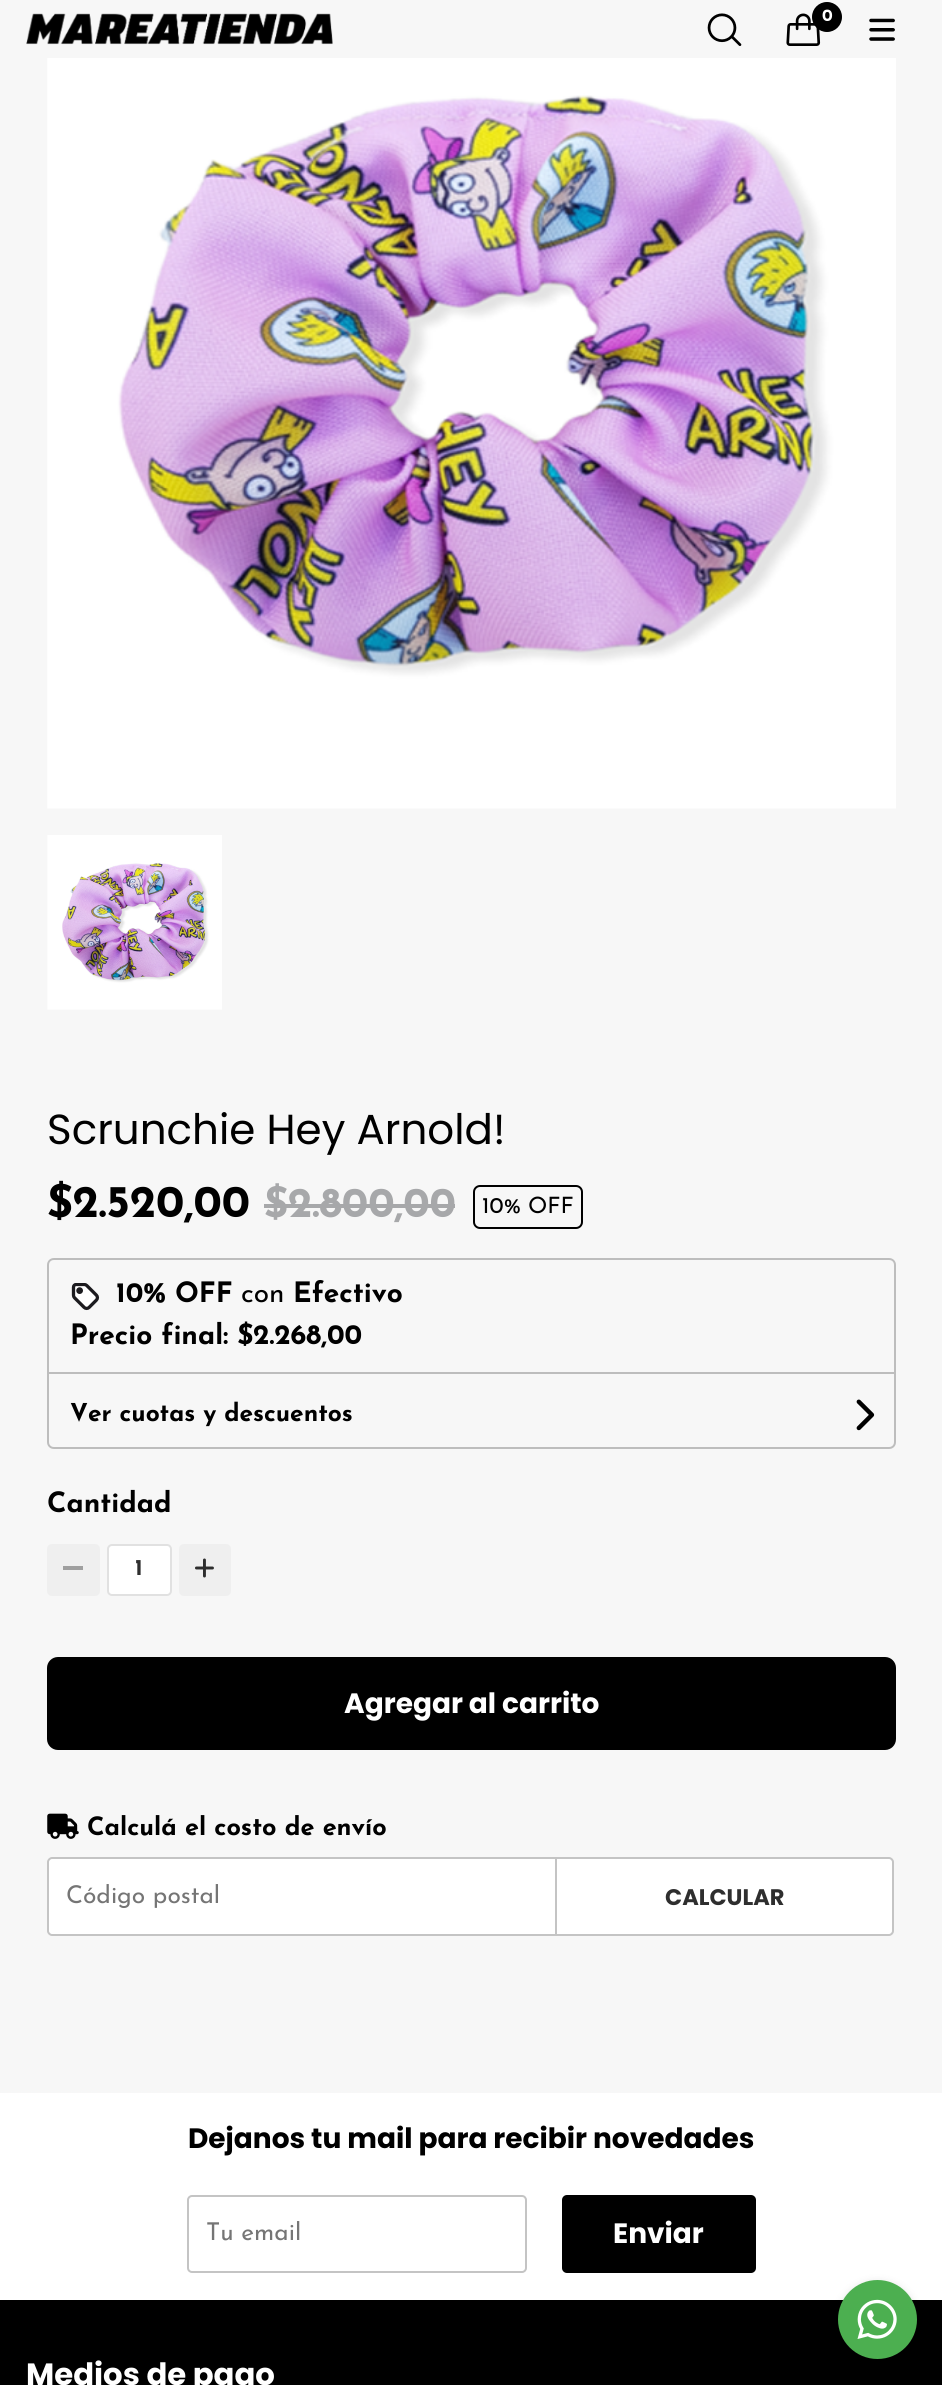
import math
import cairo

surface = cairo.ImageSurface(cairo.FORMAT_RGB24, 942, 2385)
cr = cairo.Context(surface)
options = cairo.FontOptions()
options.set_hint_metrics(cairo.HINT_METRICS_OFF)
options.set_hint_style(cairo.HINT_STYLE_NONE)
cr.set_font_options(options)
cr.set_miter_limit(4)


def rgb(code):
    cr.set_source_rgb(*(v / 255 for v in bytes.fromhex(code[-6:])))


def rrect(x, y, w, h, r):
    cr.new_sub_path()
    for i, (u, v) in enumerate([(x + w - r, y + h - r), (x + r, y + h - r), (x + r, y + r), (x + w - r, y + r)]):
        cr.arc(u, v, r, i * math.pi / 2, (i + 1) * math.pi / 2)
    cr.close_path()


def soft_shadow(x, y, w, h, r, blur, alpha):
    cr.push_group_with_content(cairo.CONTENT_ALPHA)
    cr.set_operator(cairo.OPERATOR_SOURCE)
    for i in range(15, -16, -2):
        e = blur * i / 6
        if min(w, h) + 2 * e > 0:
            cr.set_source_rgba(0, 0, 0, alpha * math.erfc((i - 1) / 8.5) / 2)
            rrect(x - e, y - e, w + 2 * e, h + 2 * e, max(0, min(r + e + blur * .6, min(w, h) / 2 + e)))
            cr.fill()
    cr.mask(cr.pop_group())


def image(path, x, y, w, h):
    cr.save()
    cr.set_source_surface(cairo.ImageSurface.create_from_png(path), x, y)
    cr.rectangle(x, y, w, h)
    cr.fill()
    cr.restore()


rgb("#f7f7f7")
cr.paint()
image("img/1.png", 26, 13, 307, 32)
image("img/2.png", 707, 13, 35, 33)
image("img/3.png", 786, 13, 35, 33)
rgb("#000000")
cr.arc(827, 17, 15, 0, 2 * math.pi)
cr.fill()
image("img/4.png", 869, 18, 26, 23)
image("img/5.png", 47, 58, 849, 751)
image("img/6.png", 47, 835, 175, 175)
rgb("#a7a8aa")
cr.rectangle(264, 1204, 191, 4)
cr.fill()
rrect(474, 1186, 108, 42, 6)
rgb("#000000")
cr.stroke()
rgb("#bdbdbd")
cr.set_fill_rule(cairo.FILL_RULE_EVEN_ODD)
cr.new_path()
cr.move_to(54, 1258)
cr.line_to(889, 1258)
cr.curve_to(893, 1258, 896, 1261, 896, 1265)
cr.line_to(896, 1372)
cr.line_to(47, 1372)
cr.line_to(47, 1265)
cr.curve_to(47, 1261, 50, 1258, 54, 1258)
cr.close_path()
cr.move_to(54, 1260)
cr.line_to(889, 1260)
cr.curve_to(892, 1260, 894, 1262, 894, 1265)
cr.line_to(894, 1372)
cr.line_to(49, 1372)
cr.line_to(49, 1265)
cr.curve_to(49, 1262, 51, 1260, 54, 1260)
cr.close_path()
cr.fill()
image("img/7.png", 71, 1283, 29, 28)
cr.new_path()
cr.move_to(48, 1373)
cr.line_to(895, 1373)
cr.line_to(895, 1442)
cr.curve_to(895, 1445.5, 892.5, 1448, 889, 1448)
cr.line_to(54, 1448)
cr.curve_to(50.5, 1448, 48, 1445.5, 48, 1442)
cr.close_path()
cr.stroke()
image("img/8.png", 856, 1399, 19, 32)
rgb("#efefef")
rrect(47, 1544, 53, 52, 5)
cr.fill()
rgb("#9f9f9f")
cr.rectangle(63, 1566, 20, 4)
cr.fill()
rgb("#ffffff")
rrect(108, 1545, 63, 50, 4)
cr.fill_preserve()
rgb("#e1e1e1")
cr.stroke()
rgb("#efefef")
rrect(179, 1544, 52, 52, 5)
cr.fill()
image("img/9.png", 195, 1558, 19, 20)
rgb("#000000")
rrect(47, 1657, 849, 93, 11)
cr.fill()
image("img/10.png", 47, 1813, 32, 26)
rgb("#ffffff")
cr.new_path()
cr.move_to(52, 1858)
cr.line_to(556, 1858)
cr.line_to(556, 1935)
cr.line_to(52, 1935)
cr.curve_to(50, 1935, 48, 1933, 48, 1931)
cr.line_to(48, 1862)
cr.curve_to(48, 1860, 50, 1858, 52, 1858)
cr.close_path()
cr.fill_preserve()
rgb("#c4c4c4")
cr.stroke()
rgb("#ffffff")
cr.new_path()
cr.move_to(556, 1858)
cr.line_to(889, 1858)
cr.curve_to(891, 1858, 893, 1860, 893, 1862)
cr.line_to(893, 1931)
cr.curve_to(893, 1933, 891, 1935, 889, 1935)
cr.line_to(556, 1935)
cr.close_path()
cr.fill_preserve()
rgb("#c4c4c4")
cr.stroke()
rgb("#ffffff")
cr.rectangle(0, 2093, 942, 207)
cr.fill()
rrect(188, 2196, 338, 76, 4)
rgb("#c4c4c4")
cr.stroke()
rgb("#000000")
rrect(562, 2195, 194, 78, 5)
cr.fill()
cr.rectangle(0, 2300, 942, 85)
cr.fill()
rgb("#000000")
soft_shadow(838, 2282, 79, 79, 39.5, 4.5, 0.12)
soft_shadow(838, 2284, 79, 79, 39.5, 2, 0.14)
rgb("#4caf50")
cr.arc(877.5, 2319.5, 39.5, 0, 2 * math.pi)
cr.fill()
image("img/11.png", 857, 2299, 40, 40)
cr.select_font_face("Josefin Sans", cairo.FONT_SLANT_NORMAL, cairo.FONT_WEIGHT_BOLD)
cr.set_font_size(17)
rgb("#ffffff")
cr.move_to(822, 21)
cr.show_text("0")
cr.select_font_face("Poppins")
cr.set_font_size(42)
rgb("#000000")
cr.move_to(47, 1144)
cr.show_text("Scrunchie Hey Arnold!")
cr.select_font_face("Josefin Sans", cairo.FONT_SLANT_NORMAL, cairo.FONT_WEIGHT_BOLD)
cr.set_font_size(45)
cr.move_to(47, 1217)
cr.show_text("$2.520,00")
cr.set_font_size(42)
rgb("#a7a8aa")
cr.move_to(264, 1217)
cr.show_text("$2.800,00")
cr.select_font_face("Josefin Sans")
cr.set_font_size(22.5)
rgb("#000000")
cr.move_to(482, 1213)
cr.show_text("10% OFF")
cr.select_font_face("Josefin Sans", cairo.FONT_SLANT_NORMAL, cairo.FONT_WEIGHT_BOLD)
cr.set_font_size(28)
cr.move_to(116, 1302)
cr.show_text("10% OFF")
cr.select_font_face("Josefin Sans")
cr.move_to(241, 1302)
cr.show_text("con")
cr.select_font_face("Josefin Sans", cairo.FONT_SLANT_NORMAL, cairo.FONT_WEIGHT_BOLD)
cr.move_to(293, 1302)
cr.show_text("Efectivo")
cr.move_to(70, 1344)
cr.show_text("Precio final: $2.268,00")
cr.set_font_size(24.5)
cr.move_to(70, 1421)
cr.show_text("Ver cuotas y descuentos")
cr.set_font_size(28)
cr.move_to(47, 1512)
cr.show_text("Cantidad")
cr.set_font_size(22.5)
rgb("#2e2e2e")
cr.move_to(135, 1575)
cr.show_text("1")
cr.select_font_face("Poppins", cairo.FONT_SLANT_NORMAL, cairo.FONT_WEIGHT_BOLD)
cr.set_font_size(28)
rgb("#ffffff")
cr.move_to(344, 1713)
cr.show_text("Agregar al carrito")
cr.select_font_face("Josefin Sans", cairo.FONT_SLANT_NORMAL, cairo.FONT_WEIGHT_BOLD)
cr.set_font_size(25.25)
rgb("#000000")
cr.move_to(87, 1835)
cr.show_text("Calculá el costo de envío")
cr.select_font_face("Josefin Sans")
cr.set_font_size(24.5)
rgb("#757575")
cr.move_to(66, 1903)
cr.show_text("Código postal")
cr.select_font_face("Poppins", cairo.FONT_SLANT_NORMAL, cairo.FONT_WEIGHT_BOLD)
cr.set_font_size(22.5)
rgb("#2e2e2e")
cr.move_to(665, 1905)
cr.show_text("CALCULAR")
cr.set_font_size(28)
rgb("#000000")
cr.move_to(188, 2148)
cr.show_text("Dejanos tu mail para recibir novedades")
cr.select_font_face("Josefin Sans")
cr.set_font_size(24.5)
rgb("#757575")
cr.move_to(206, 2240)
cr.show_text("Tu email")
cr.select_font_face("Poppins", cairo.FONT_SLANT_NORMAL, cairo.FONT_WEIGHT_BOLD)
cr.set_font_size(28)
rgb("#ffffff")
cr.move_to(613, 2243)
cr.show_text("Enviar")
cr.set_font_size(30.75)
cr.move_to(26, 2385)
cr.show_text("Medios de pago")
surface.write_to_png("page.png")
